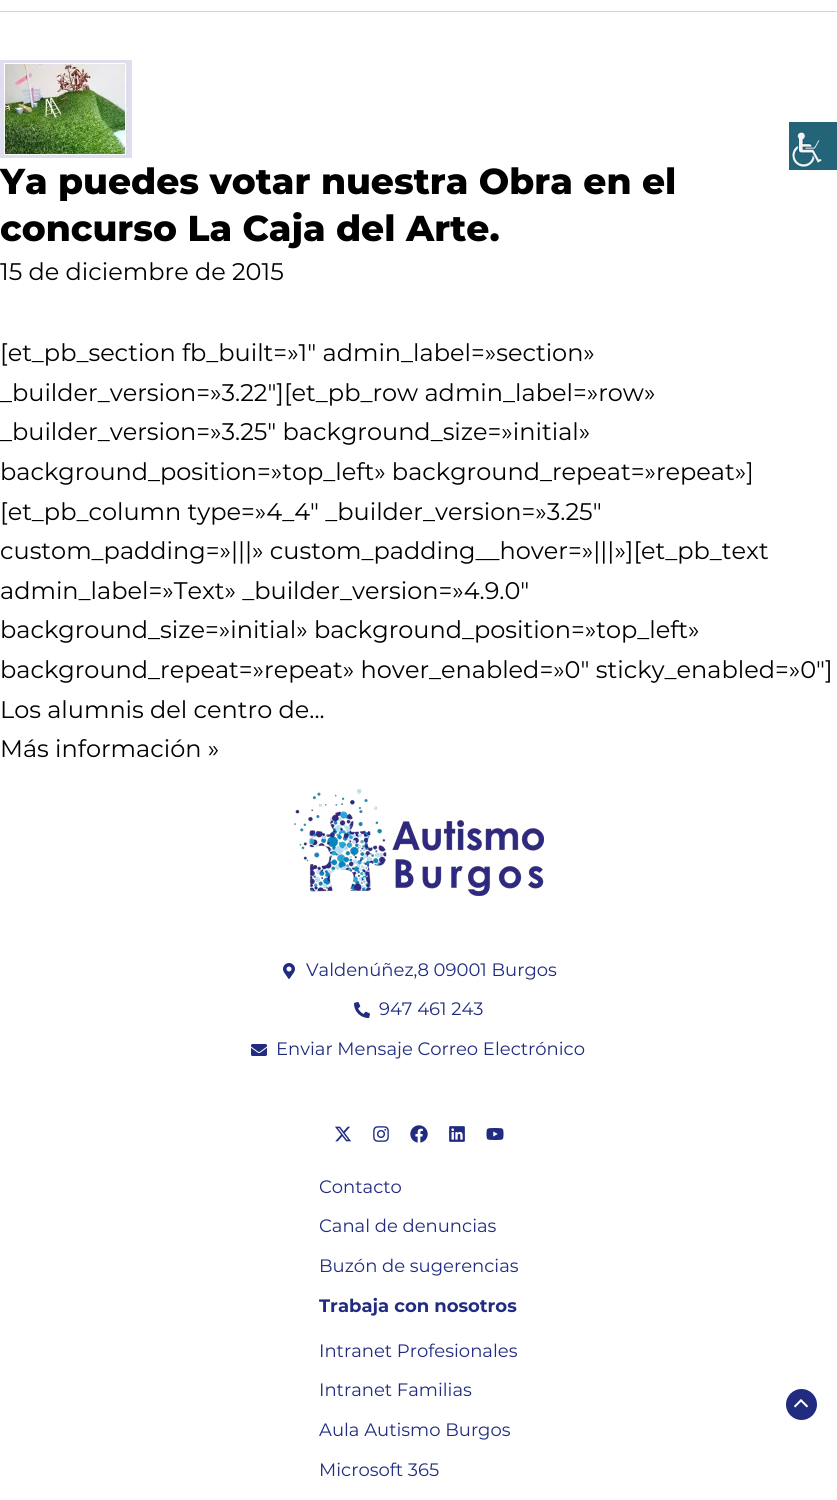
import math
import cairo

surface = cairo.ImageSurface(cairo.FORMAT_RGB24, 837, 1500)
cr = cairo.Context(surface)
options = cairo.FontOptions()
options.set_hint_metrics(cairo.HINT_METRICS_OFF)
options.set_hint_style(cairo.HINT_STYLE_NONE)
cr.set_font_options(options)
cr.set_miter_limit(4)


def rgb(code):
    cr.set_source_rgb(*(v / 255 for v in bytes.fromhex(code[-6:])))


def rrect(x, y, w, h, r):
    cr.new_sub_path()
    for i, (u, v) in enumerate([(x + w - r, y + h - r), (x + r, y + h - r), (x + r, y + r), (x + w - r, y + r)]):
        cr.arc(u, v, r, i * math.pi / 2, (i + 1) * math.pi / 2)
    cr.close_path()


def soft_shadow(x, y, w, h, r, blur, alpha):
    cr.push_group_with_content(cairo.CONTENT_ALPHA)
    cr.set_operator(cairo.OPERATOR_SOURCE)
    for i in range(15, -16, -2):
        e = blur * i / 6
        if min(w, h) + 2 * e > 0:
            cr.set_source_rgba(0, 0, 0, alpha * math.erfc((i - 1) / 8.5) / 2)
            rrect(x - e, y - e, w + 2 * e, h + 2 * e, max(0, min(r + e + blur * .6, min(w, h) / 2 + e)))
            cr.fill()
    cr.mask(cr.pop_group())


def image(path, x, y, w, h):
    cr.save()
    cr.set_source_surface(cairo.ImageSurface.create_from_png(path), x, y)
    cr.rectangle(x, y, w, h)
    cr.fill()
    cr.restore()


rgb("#ffffff")
cr.paint()
rgb("#000000")
soft_shadow(789, 123, 48, 48, 24, 1, 0.05)
image("img/1.png", 789, 122, 48, 48)
rgb("#d1d5db")
cr.rectangle(0, 11, 837, 1)
cr.fill()
image("img/2.png", 0, 60, 132, 98)
image("img/3.png", 294, 789, 250, 107)
image("img/4.png", 283, 963, 12, 16)
image("img/5.png", 354, 1002, 16, 16)
image("img/6.png", 251, 1044, 16, 12)
image("img/7.png", 335, 1126, 16, 16)
image("img/8.png", 373, 1126, 16, 16)
image("img/9.png", 410, 1125, 18, 18)
image("img/10.png", 449, 1126, 16, 16)
image("img/11.png", 486, 1128, 18, 12)
rgb("#212c80")
cr.arc(801.5, 1404.5, 15.5, 0, 2 * math.pi)
cr.fill()
image("img/12.png", 794, 1399, 15, 9)
cr.select_font_face("Montserrat ExtraBold")
cr.set_font_size(36)
rgb("#000000")
cr.move_to(0, 194)
cr.show_text("Ya puedes votar nuestra Obra en el")
cr.move_to(0, 241)
cr.show_text("concurso La Caja del Arte.")
cr.select_font_face("Montserrat")
cr.set_font_size(24)
for x, y, s in [
    (0, 280, "15 de diciembre de 2015"),
    (0, 361, "[et_pb_section fb_built=»1″ admin_label=»section»"),
    (0, 401, "_builder_version=»3.22″][et_pb_row admin_label=»row»"),
    (0, 440, "_builder_version=»3.25″ background_size=»initial»"),
    (0, 480, "background_position=»top_left» background_repeat=»repeat»]"),
    (0, 520, "[et_pb_column type=»4_4″ _builder_version=»3.25″"),
    (0, 559, "custom_padding=»|||» custom_padding__hover=»|||»][et_pb_text"),
    (0, 599, "admin_label=»Text» _builder_version=»4.9.0″"),
    (0, 638, "background_size=»initial» background_position=»top_left»"),
    (0, 678, "background_repeat=»repeat» hover_enabled=»0″ sticky_enabled=»0″]"),
    (0, 718, "Los alumnis del centro de..."),
    (0, 757, "Más información »"),
]:
    cr.move_to(x, y)
    cr.show_text(s)
cr.set_font_size(18)
rgb("#212c80")
for x, y, s in [
    (306, 976, "Valdenúñez,8 09001 Burgos"),
    (379, 1015, "947 461 243"),
    (276, 1055, "Enviar Mensaje Correo Electrónico"),
    (319, 1193, "Contacto"),
    (319, 1232, "Canal de denuncias"),
    (319, 1272, "Buzón de sugerencias"),
]:
    cr.move_to(x, y)
    cr.show_text(s)
cr.select_font_face("Montserrat", cairo.FONT_SLANT_NORMAL, cairo.FONT_WEIGHT_BOLD)
cr.move_to(319, 1312)
cr.show_text("Trabaja con nosotros")
cr.select_font_face("Montserrat")
for x, y, s in [
    (319, 1357, "Intranet Profesionales"),
    (319, 1396, "Intranet Familias"),
    (319, 1436, "Aula Autismo Burgos"),
    (319, 1476, "Microsoft 365"),
]:
    cr.move_to(x, y)
    cr.show_text(s)
surface.write_to_png("page.png")
